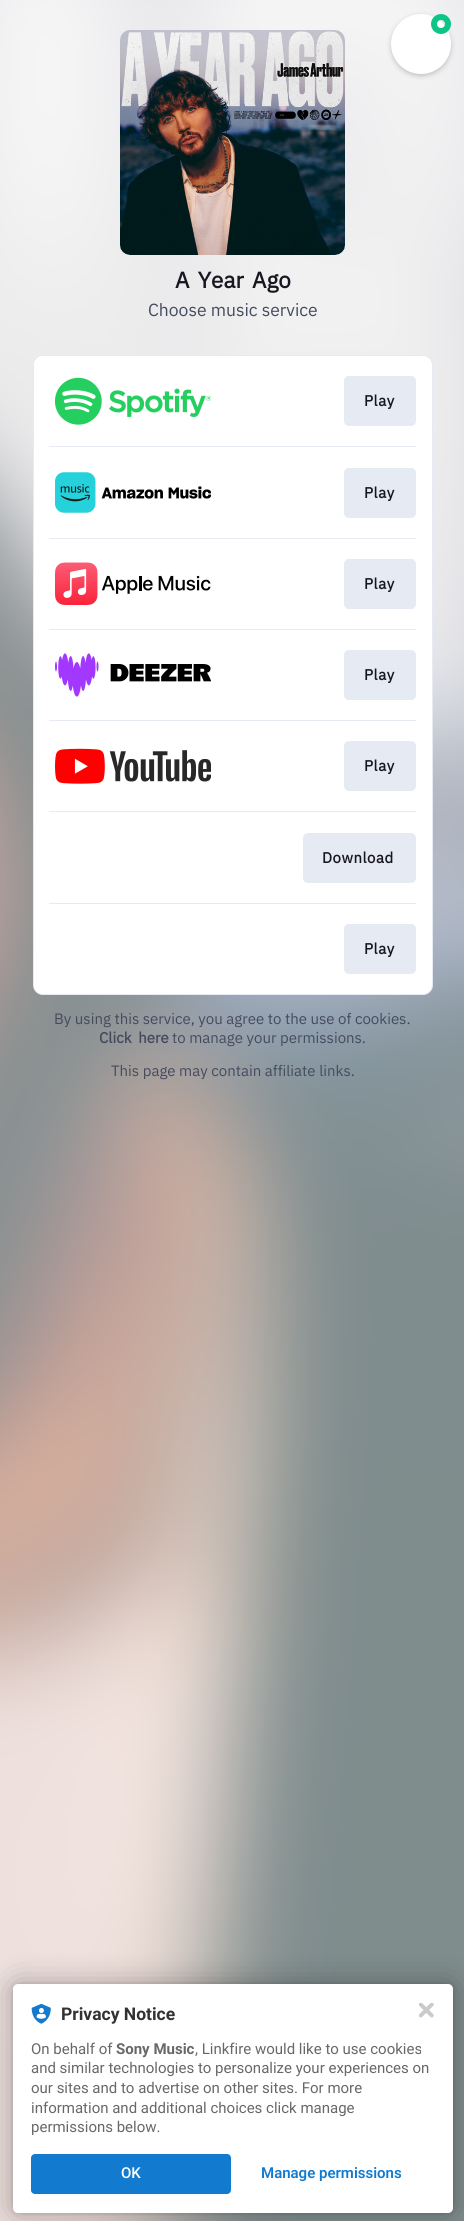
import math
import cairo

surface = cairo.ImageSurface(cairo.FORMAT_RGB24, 464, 2221)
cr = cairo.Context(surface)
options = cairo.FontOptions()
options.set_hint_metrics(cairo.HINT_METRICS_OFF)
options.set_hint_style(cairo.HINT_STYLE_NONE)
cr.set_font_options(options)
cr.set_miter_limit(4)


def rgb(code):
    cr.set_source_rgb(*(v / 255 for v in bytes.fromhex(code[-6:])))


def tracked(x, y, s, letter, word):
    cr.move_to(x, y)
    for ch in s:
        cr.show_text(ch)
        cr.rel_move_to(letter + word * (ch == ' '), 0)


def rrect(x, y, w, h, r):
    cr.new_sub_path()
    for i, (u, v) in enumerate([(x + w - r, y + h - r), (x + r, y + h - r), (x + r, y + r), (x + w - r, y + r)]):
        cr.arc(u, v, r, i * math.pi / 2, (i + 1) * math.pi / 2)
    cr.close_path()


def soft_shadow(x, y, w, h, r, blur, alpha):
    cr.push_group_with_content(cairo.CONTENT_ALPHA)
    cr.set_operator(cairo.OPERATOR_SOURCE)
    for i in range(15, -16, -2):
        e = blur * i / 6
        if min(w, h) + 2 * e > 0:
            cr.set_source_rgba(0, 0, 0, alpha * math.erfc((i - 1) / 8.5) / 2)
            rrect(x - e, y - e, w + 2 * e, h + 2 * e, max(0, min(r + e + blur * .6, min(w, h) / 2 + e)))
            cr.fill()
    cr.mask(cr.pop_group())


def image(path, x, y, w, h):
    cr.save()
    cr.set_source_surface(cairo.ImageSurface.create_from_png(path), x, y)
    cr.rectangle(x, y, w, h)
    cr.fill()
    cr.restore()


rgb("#ffffff")
cr.paint()
image("img/1.png", 0, 0, 464, 2221)
rgb("#000000")
soft_shadow(391, 16, 60, 60, 30, 2.5, 0.2)
rgb("#ffffff")
cr.arc(421, 44, 30, 0, 2 * math.pi)
cr.fill()
cr.arc(441, 24, 7, 0, 2 * math.pi)
rgb("#0dc587")
cr.set_line_width(6)
cr.stroke()
image("img/2.png", 120, 30, 225, 225)
rgb("#ffffff")
rrect(33.5, 355.5, 399, 639, 9.5)
cr.fill_preserve()
rgb("#e6eaf2")
cr.set_line_width(1)
cr.stroke()
rgb("#ffffff")
rrect(34, 356, 397, 638, 9)
cr.fill()
image("img/3.png", 55, 377, 156, 48)
rgb("#e6eaf2")
rrect(344, 376, 72, 50, 5)
cr.fill()
cr.rectangle(49, 446, 367, 1)
cr.fill()
image("img/4.png", 55, 472, 156, 41)
rrect(344, 468, 72, 50, 5)
cr.fill()
cr.rectangle(49, 538, 367, 1)
cr.fill()
image("img/5.png", 55, 562, 156, 43)
rrect(344, 559, 72, 50, 5)
cr.fill()
cr.rectangle(49, 629, 367, 1)
cr.fill()
image("img/6.png", 55, 653, 156, 44)
rrect(344, 650, 72, 50, 5)
cr.fill()
cr.rectangle(49, 720, 367, 1)
cr.fill()
image("img/7.png", 55, 748, 156, 36)
rrect(344, 741, 72, 50, 5)
cr.fill()
cr.rectangle(49, 811, 367, 1)
cr.fill()
rrect(303, 833, 113, 50, 5)
cr.fill()
cr.rectangle(49, 903, 367, 1)
cr.fill()
rrect(344, 924, 72, 50, 5)
cr.fill()
rgb("#000000")
soft_shadow(13, 1984, 440, 229, 5, 2.5, 0.12)
soft_shadow(13, 1984, 440, 229, 5, 15, 0.3)
rgb("#ffffff")
rrect(13, 1984, 440, 229, 5)
cr.fill()
image("img/8.png", 419, 2003, 15, 15)
image("img/9.png", 31, 2004, 20, 20)
rgb("#137bcf")
rrect(31, 2154, 200, 40, 4)
cr.fill()
cr.select_font_face("IBM Plex Sans", cairo.FONT_SLANT_NORMAL, cairo.FONT_WEIGHT_BOLD)
cr.set_font_size(22.5)
rgb("#181721")
tracked(175, 288, "A Year Ago", 0, 3)
cr.select_font_face("IBM Plex Sans")
cr.set_font_size(17.5)
rgb("#454b5f")
cr.move_to(148, 316)
cr.show_text("Choose music service")
cr.select_font_face("IBM Plex Sans", cairo.FONT_SLANT_NORMAL, cairo.FONT_WEIGHT_BOLD)
cr.set_font_size(15)
rgb("#181721")
for x, y, s in [
    (364, 406, "Play"),
    (364, 498, "Play"),
    (364, 589, "Play"),
    (364, 680, "Play"),
    (364, 771, "Play"),
    (322, 863, "Download"),
    (364, 954, "Play"),
]:
    tracked(x, y, s, 0.5, 0)
cr.select_font_face("IBM Plex Sans")
rgb("#454b5f")
cr.move_to(54, 1024)
cr.show_text("By using this service, you agree to the use of cookies.")
cr.select_font_face("IBM Plex Sans", cairo.FONT_SLANT_NORMAL, cairo.FONT_WEIGHT_BOLD)
tracked(99, 1043, "Click here", 0, 3)
cr.select_font_face("IBM Plex Sans")
cr.move_to(172, 1043)
cr.show_text("to manage your permissions.")
cr.move_to(111, 1076)
cr.show_text("This page may contain affiliate links.")
cr.select_font_face("Roboto", cairo.FONT_SLANT_NORMAL, cairo.FONT_WEIGHT_BOLD)
cr.set_font_size(17.5)
rgb("#323232")
cr.move_to(61, 2020)
cr.show_text("Privacy Notice")
cr.select_font_face("Roboto")
cr.set_font_size(15)
rgb("#686868")
cr.move_to(31, 2054)
cr.show_text("On behalf of")
cr.select_font_face("Roboto", cairo.FONT_SLANT_NORMAL, cairo.FONT_WEIGHT_BOLD)
cr.move_to(116, 2054)
cr.show_text("Sony Music")
cr.select_font_face("Roboto")
for x, y, s in [
    (195, 2054, ", Linkfire would like to use cookies"),
    (31, 2073, "and similar technologies to personalize your experiences on"),
    (31, 2093, "our sites and to advertise on other sites. For more"),
    (31, 2113, "information and additional choices click manage"),
    (31, 2132, "permissions below."),
]:
    cr.move_to(x, y)
    cr.show_text(s)
cr.select_font_face("Roboto Medium")
rgb("#ffffff")
cr.move_to(121, 2178)
cr.show_text("OK")
cr.select_font_face("Roboto SemiBold")
rgb("#137bcf")
cr.move_to(261, 2178)
cr.show_text("Manage permissions")
surface.write_to_png("page.png")
